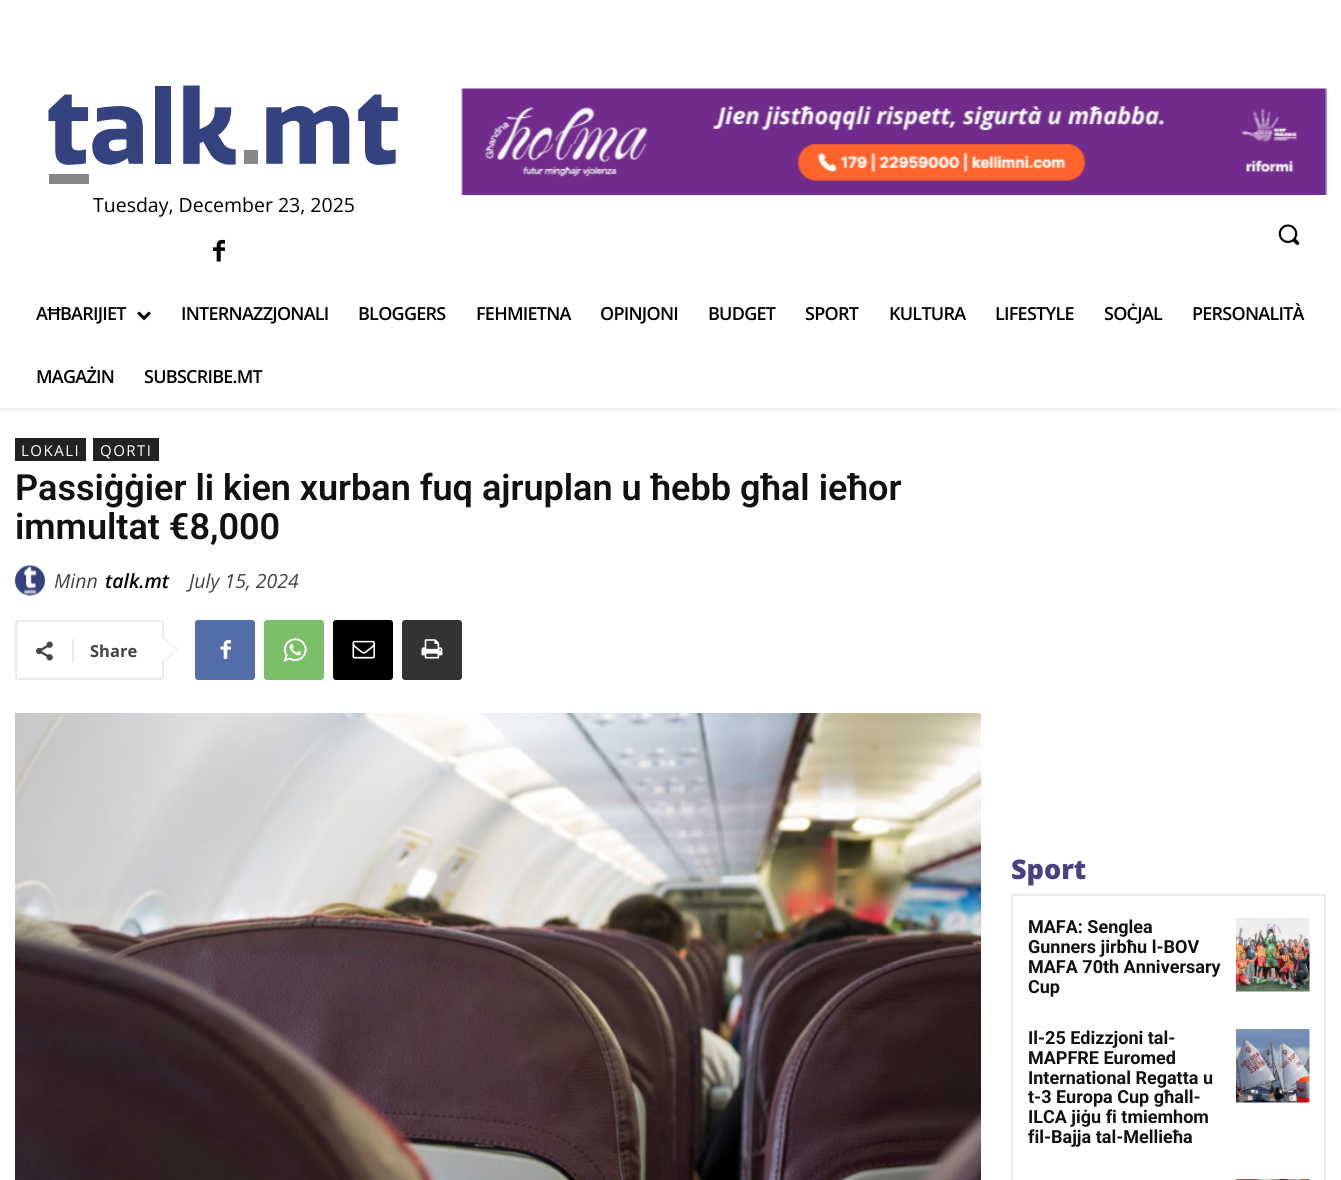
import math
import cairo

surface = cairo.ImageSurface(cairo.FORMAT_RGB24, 1341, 1180)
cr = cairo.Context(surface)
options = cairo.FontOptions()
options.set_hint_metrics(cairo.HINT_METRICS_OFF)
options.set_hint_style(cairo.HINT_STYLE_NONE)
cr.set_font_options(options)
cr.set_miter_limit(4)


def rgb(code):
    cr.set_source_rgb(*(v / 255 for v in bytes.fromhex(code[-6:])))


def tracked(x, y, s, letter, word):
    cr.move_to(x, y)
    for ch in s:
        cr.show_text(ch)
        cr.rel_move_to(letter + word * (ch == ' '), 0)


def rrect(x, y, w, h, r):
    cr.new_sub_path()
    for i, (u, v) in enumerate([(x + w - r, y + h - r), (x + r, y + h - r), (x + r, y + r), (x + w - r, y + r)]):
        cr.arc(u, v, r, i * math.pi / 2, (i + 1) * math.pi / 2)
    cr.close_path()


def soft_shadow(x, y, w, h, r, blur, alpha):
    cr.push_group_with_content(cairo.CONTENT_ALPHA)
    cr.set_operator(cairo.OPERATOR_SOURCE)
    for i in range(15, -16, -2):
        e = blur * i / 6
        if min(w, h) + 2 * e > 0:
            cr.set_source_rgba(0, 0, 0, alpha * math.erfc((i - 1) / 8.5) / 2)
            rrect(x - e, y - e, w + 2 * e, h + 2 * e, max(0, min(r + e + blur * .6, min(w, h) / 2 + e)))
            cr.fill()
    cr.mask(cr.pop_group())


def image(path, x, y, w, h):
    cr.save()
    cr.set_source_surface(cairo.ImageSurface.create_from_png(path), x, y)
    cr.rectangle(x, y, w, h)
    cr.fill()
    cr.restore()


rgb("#ffffff")
cr.paint()
image("img/1.png", 48, 85, 350, 99)
image("img/2.png", 213, 239, 12, 23)
image("img/3.png", 461, 88, 866, 107)
image("img/4.png", 1278, 224, 22, 21)
cr.save()
cr.rectangle(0, 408, 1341, 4)
cr.clip()
rgb("#000000")
soft_shadow(0, 284, 1341, 127, 0, 3, 0.06)
cr.restore()
image("img/5.png", 137, 311, 14, 10)
rgb("#222222")
cr.rectangle(15, 438, 71, 23)
cr.fill()
cr.rectangle(93, 438, 66, 23)
cr.fill()
image("img/6.png", 15, 565, 30, 31)
rrect(16, 621, 147, 58, 2)
rgb("#e9e9e9")
cr.stroke()
cr.new_path()
cr.move_to(162, 663)
cr.line_to(162, 636)
cr.line_to(178.5, 649.5)
cr.close_path()
cr.fill()
image("img/7.png", 36, 641, 17, 20)
rgb("#ebebeb")
cr.rectangle(72, 639, 2, 24)
cr.fill()
rgb("#ffffff")
cr.new_path()
cr.move_to(162, 661.5)
cr.line_to(162, 637.5)
cr.line_to(177, 649.5)
cr.close_path()
cr.fill()
rgb("#516eab")
rrect(195, 620, 60, 60, 3)
cr.fill()
image("img/8.png", 220, 640, 11, 19)
rgb("#7bbf6a")
rrect(264, 620, 60, 60, 3)
cr.fill()
image("img/9.png", 283, 638, 24, 24)
rgb("#000000")
rrect(333, 620, 60, 60, 3)
cr.fill()
image("img/10.png", 352, 640, 23, 19)
rgb("#333333")
rrect(402, 620, 60, 60, 3)
cr.fill()
image("img/11.png", 421, 639, 22, 20)
image("img/12.png", 15, 713, 966, 467)
cr.rectangle(1012, 895, 313, 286)
rgb("#eaeaea")
cr.stroke()
image("img/13.png", 1236, 918, 74, 74)
image("img/14.png", 1236, 1029, 74, 74)
image("img/15.png", 1236, 1179, 74, 1)
cr.select_font_face("Open Sans")
cr.set_font_size(19.5)
rgb("#000000")
cr.move_to(93, 212)
cr.show_text("Tuesday, December 23, 2025")
cr.select_font_face("Open Sans SemiBold")
cr.set_font_size(18)
for x, y, s in [
    (36, 320, "AĦBARIJIET"),
    (181, 320, "INTERNAZZJONALI"),
    (358, 320, "BLOGGERS"),
    (476, 320, "FEHMIETNA"),
    (600, 320, "OPINJONI"),
    (708, 320, "BUDGET"),
    (805, 320, "SPORT"),
    (889, 320, "KULTURA"),
    (995, 320, "LIFESTYLE"),
    (1104, 320, "SOĊJAL"),
    (1192, 320, "PERSONALITÀ"),
    (36, 383, "MAGAŻIN"),
    (144, 383, "SUBSCRIBE.MT"),
]:
    tracked(x, y, s, -0.75, 0)
cr.select_font_face("Open Sans")
cr.set_font_size(15)
rgb("#ffffff")
tracked(21, 456, "LOKALI", 1.5, 0)
tracked(100, 456, "QORTI", 1.5, 0)
cr.select_font_face("Roboto SemiBold")
cr.set_font_size(36)
rgb("#111111")
cr.move_to(15, 500)
cr.show_text("Passiġġier li kien xurban fuq ajruplan u ħebb għal ieħor")
cr.move_to(15, 539)
cr.show_text("immultat €8,000")
cr.select_font_face("Open Sans", cairo.FONT_SLANT_ITALIC)
cr.set_font_size(19.5)
rgb("#444444")
cr.move_to(54, 588)
cr.show_text("Minn")
cr.select_font_face("Open Sans SemiBold", cairo.FONT_SLANT_ITALIC)
rgb("#000000")
cr.move_to(105, 588)
cr.show_text("talk.mt")
cr.select_font_face("Open Sans", cairo.FONT_SLANT_ITALIC)
rgb("#444444")
cr.move_to(189, 588)
cr.show_text("July 15, 2024")
cr.select_font_face("Open Sans", cairo.FONT_SLANT_NORMAL, cairo.FONT_WEIGHT_BOLD)
cr.set_font_size(16.5)
cr.move_to(90, 657)
cr.show_text("Share")
cr.select_font_face("Open Sans ExtraBold")
cr.set_font_size(27)
rgb("#4c4084")
cr.move_to(1011, 879)
cr.show_text("Sport")
cr.select_font_face("Roboto", cairo.FONT_SLANT_NORMAL, cairo.FONT_WEIGHT_BOLD)
cr.set_font_size(18)
rgb("#111111")
for x, y, s in [
    (1028, 933, "MAFA: Senglea"),
    (1028, 953, "Gunners jirbħu l-BOV"),
    (1028, 973, "MAFA 70th Anniversary"),
    (1028, 993, "Cup"),
    (1028, 1044, "Il-25 Edizzjoni tal-"),
    (1028, 1064, "MAPFRE Euromed"),
    (1028, 1084, "International Regatta u"),
    (1028, 1103, "t-3 Europa Cup għall-"),
    (1028, 1123, "ILCA jiġu fi tmiemhom"),
    (1028, 1143, "fil-Bajja tal-Mellieħa"),
]:
    cr.move_to(x, y)
    cr.show_text(s)
surface.write_to_png("page.png")
